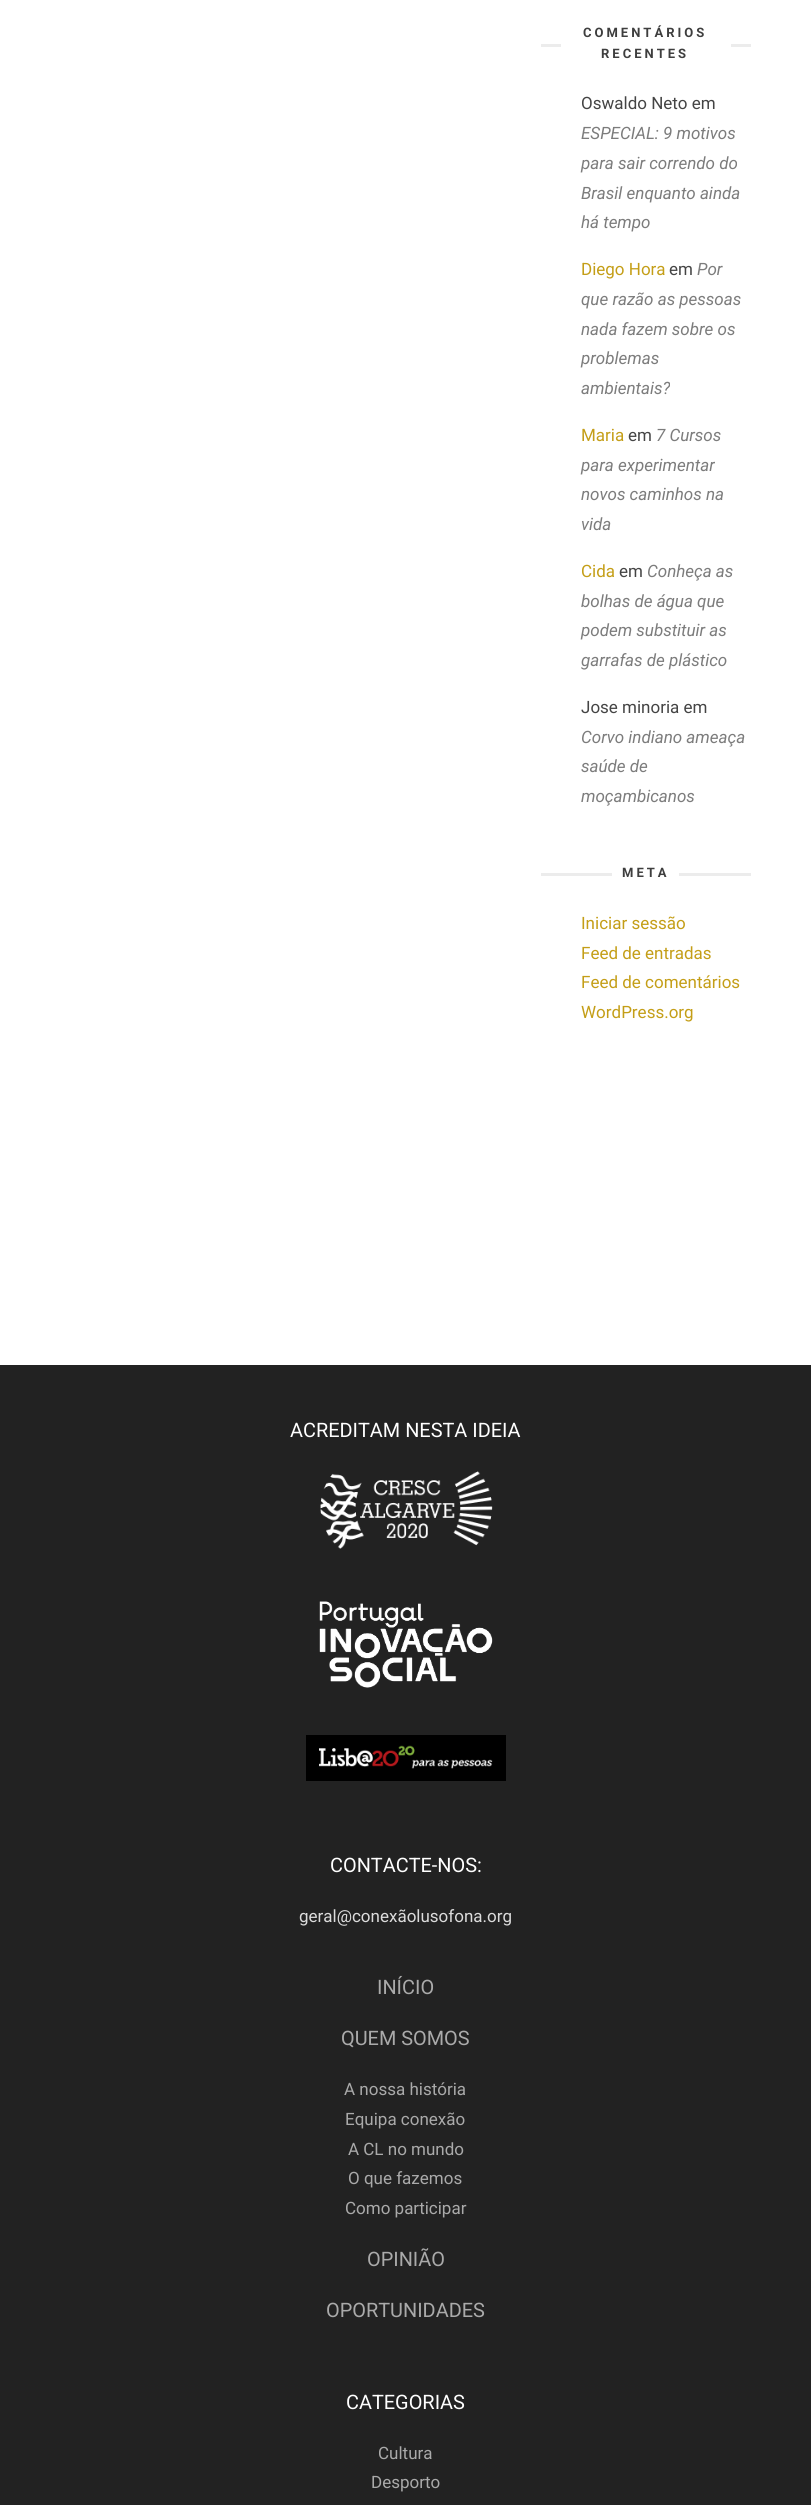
import math
import cairo

surface = cairo.ImageSurface(cairo.FORMAT_RGB24, 811, 2505)
cr = cairo.Context(surface)
options = cairo.FontOptions()
options.set_hint_metrics(cairo.HINT_METRICS_OFF)
options.set_hint_style(cairo.HINT_STYLE_NONE)
cr.set_font_options(options)
cr.set_miter_limit(4)


def rgb(code):
    cr.set_source_rgb(*(v / 255 for v in bytes.fromhex(code[-6:])))


def tracked(x, y, s, letter, word):
    cr.move_to(x, y)
    for ch in s:
        cr.show_text(ch)
        cr.rel_move_to(letter + word * (ch == ' '), 0)


def image(path, x, y, w, h):
    cr.save()
    cr.set_source_surface(cairo.ImageSurface.create_from_png(path), x, y)
    cr.rectangle(x, y, w, h)
    cr.fill()
    cr.restore()


rgb("#ffffff")
cr.paint()
for x, y, w, h, color in [
    (541, 44, 20, 3, "#ececec"),
    (731, 44, 20, 3, "#ececec"),
    (541, 873, 71, 3, "#ececec"),
    (679, 873, 72, 3, "#ececec"),
    (0, 1365, 811, 1140, "#222222"),
]:
    rgb(color)
    cr.rectangle(x, y, w, h)
    cr.fill()
image("img/1.png", 320, 1471, 173, 78)
image("img/2.png", 319, 1601, 174, 87)
image("img/3.png", 306, 1735, 200, 46)
cr.select_font_face("Roboto", cairo.FONT_SLANT_NORMAL, cairo.FONT_WEIGHT_BOLD)
cr.set_font_size(13)
rgb("#3e3e3e")
tracked(583, 37, "COMENTÁRIOS", 3, 0)
tracked(601, 58, "RECENTES", 3, 0)
cr.select_font_face("Roboto")
cr.set_font_size(17)
rgb("#444444")
cr.move_to(581, 109)
cr.show_text("Oswaldo Neto em")
cr.select_font_face("Roboto", cairo.FONT_SLANT_ITALIC)
rgb("#7c7c7c")
for x, y, s in [
    (581, 139, "ESPECIAL: 9 motivos"),
    (581, 169, "para sair correndo do"),
    (581, 199, "Brasil enquanto ainda"),
    (581, 228, "há tempo"),
]:
    cr.move_to(x, y)
    cr.show_text(s)
cr.select_font_face("Roboto")
rgb("#c49e17")
cr.move_to(581, 275)
cr.show_text("Diego Hora")
rgb("#444444")
cr.move_to(669, 275)
cr.show_text("em")
cr.select_font_face("Roboto", cairo.FONT_SLANT_ITALIC)
rgb("#7c7c7c")
for x, y, s in [
    (697, 275, "Por"),
    (581, 305, "que razão as pessoas"),
    (581, 335, "nada fazem sobre os"),
    (581, 364, "problemas"),
    (581, 394, "ambientais?"),
]:
    cr.move_to(x, y)
    cr.show_text(s)
cr.select_font_face("Roboto")
rgb("#c49e17")
cr.move_to(581, 441)
cr.show_text("Maria")
rgb("#444444")
cr.move_to(628, 441)
cr.show_text("em")
cr.select_font_face("Roboto", cairo.FONT_SLANT_ITALIC)
rgb("#7c7c7c")
for x, y, s in [
    (656, 441, "7 Cursos"),
    (581, 471, "para experimentar"),
    (581, 500, "novos caminhos na"),
    (581, 530, "vida"),
]:
    cr.move_to(x, y)
    cr.show_text(s)
cr.select_font_face("Roboto")
rgb("#c49e17")
cr.move_to(581, 577)
cr.show_text("Cida")
rgb("#444444")
cr.move_to(619, 577)
cr.show_text("em")
cr.select_font_face("Roboto", cairo.FONT_SLANT_ITALIC)
rgb("#7c7c7c")
for x, y, s in [
    (647, 577, "Conheça as"),
    (581, 607, "bolhas de água que"),
    (581, 636, "podem substituir as"),
    (581, 666, "garrafas de plástico"),
]:
    cr.move_to(x, y)
    cr.show_text(s)
cr.select_font_face("Roboto")
rgb("#444444")
cr.move_to(581, 713)
cr.show_text("Jose minoria em")
cr.select_font_face("Roboto", cairo.FONT_SLANT_ITALIC)
rgb("#7c7c7c")
for x, y, s in [
    (581, 743, "Corvo indiano ameaça"),
    (581, 772, "saúde de"),
    (581, 802, "moçambicanos"),
]:
    cr.move_to(x, y)
    cr.show_text(s)
cr.select_font_face("Roboto", cairo.FONT_SLANT_NORMAL, cairo.FONT_WEIGHT_BOLD)
cr.set_font_size(13)
rgb("#3e3e3e")
tracked(622, 877, "META", 3, 0)
cr.select_font_face("Roboto")
cr.set_font_size(17)
rgb("#c49e17")
for x, y, s in [
    (581, 929, "Iniciar sessão"),
    (581, 959, "Feed de entradas"),
    (581, 988, "Feed de comentários"),
    (581, 1018, "WordPress.org"),
]:
    cr.move_to(x, y)
    cr.show_text(s)
cr.set_font_size(19.9)
rgb("#ffffff")
cr.move_to(290, 1437)
cr.show_text("ACREDITAM NESTA IDEIA")
cr.move_to(330, 1872)
cr.show_text("CONTACTE-NOS:")
cr.set_font_size(17)
rgb("#dcdcdc")
cr.move_to(299, 1922)
cr.show_text("geral@conexãolusofona.org")
cr.set_font_size(19.9)
rgb("#aaaaaa")
cr.move_to(377, 1994)
cr.show_text("INÍCIO")
cr.move_to(341, 2045)
cr.show_text("QUEM SOMOS")
cr.set_font_size(17)
for x, y, s in [
    (344, 2095, "A nossa história"),
    (345, 2125, "Equipa conexão"),
    (348, 2155, "A CL no mundo"),
    (348, 2184, "O que fazemos"),
    (345, 2214, "Como participar"),
]:
    cr.move_to(x, y)
    cr.show_text(s)
cr.set_font_size(19.9)
cr.move_to(367, 2266)
cr.show_text("OPINIÃO")
cr.move_to(326, 2317)
cr.show_text("OPORTUNIDADES")
rgb("#ffffff")
cr.move_to(346, 2409)
cr.show_text("CATEGORIAS")
cr.set_font_size(17)
rgb("#aaaaaa")
cr.move_to(378, 2459)
cr.show_text("Cultura")
cr.move_to(371, 2488)
cr.show_text("Desporto")
surface.write_to_png("page.png")
